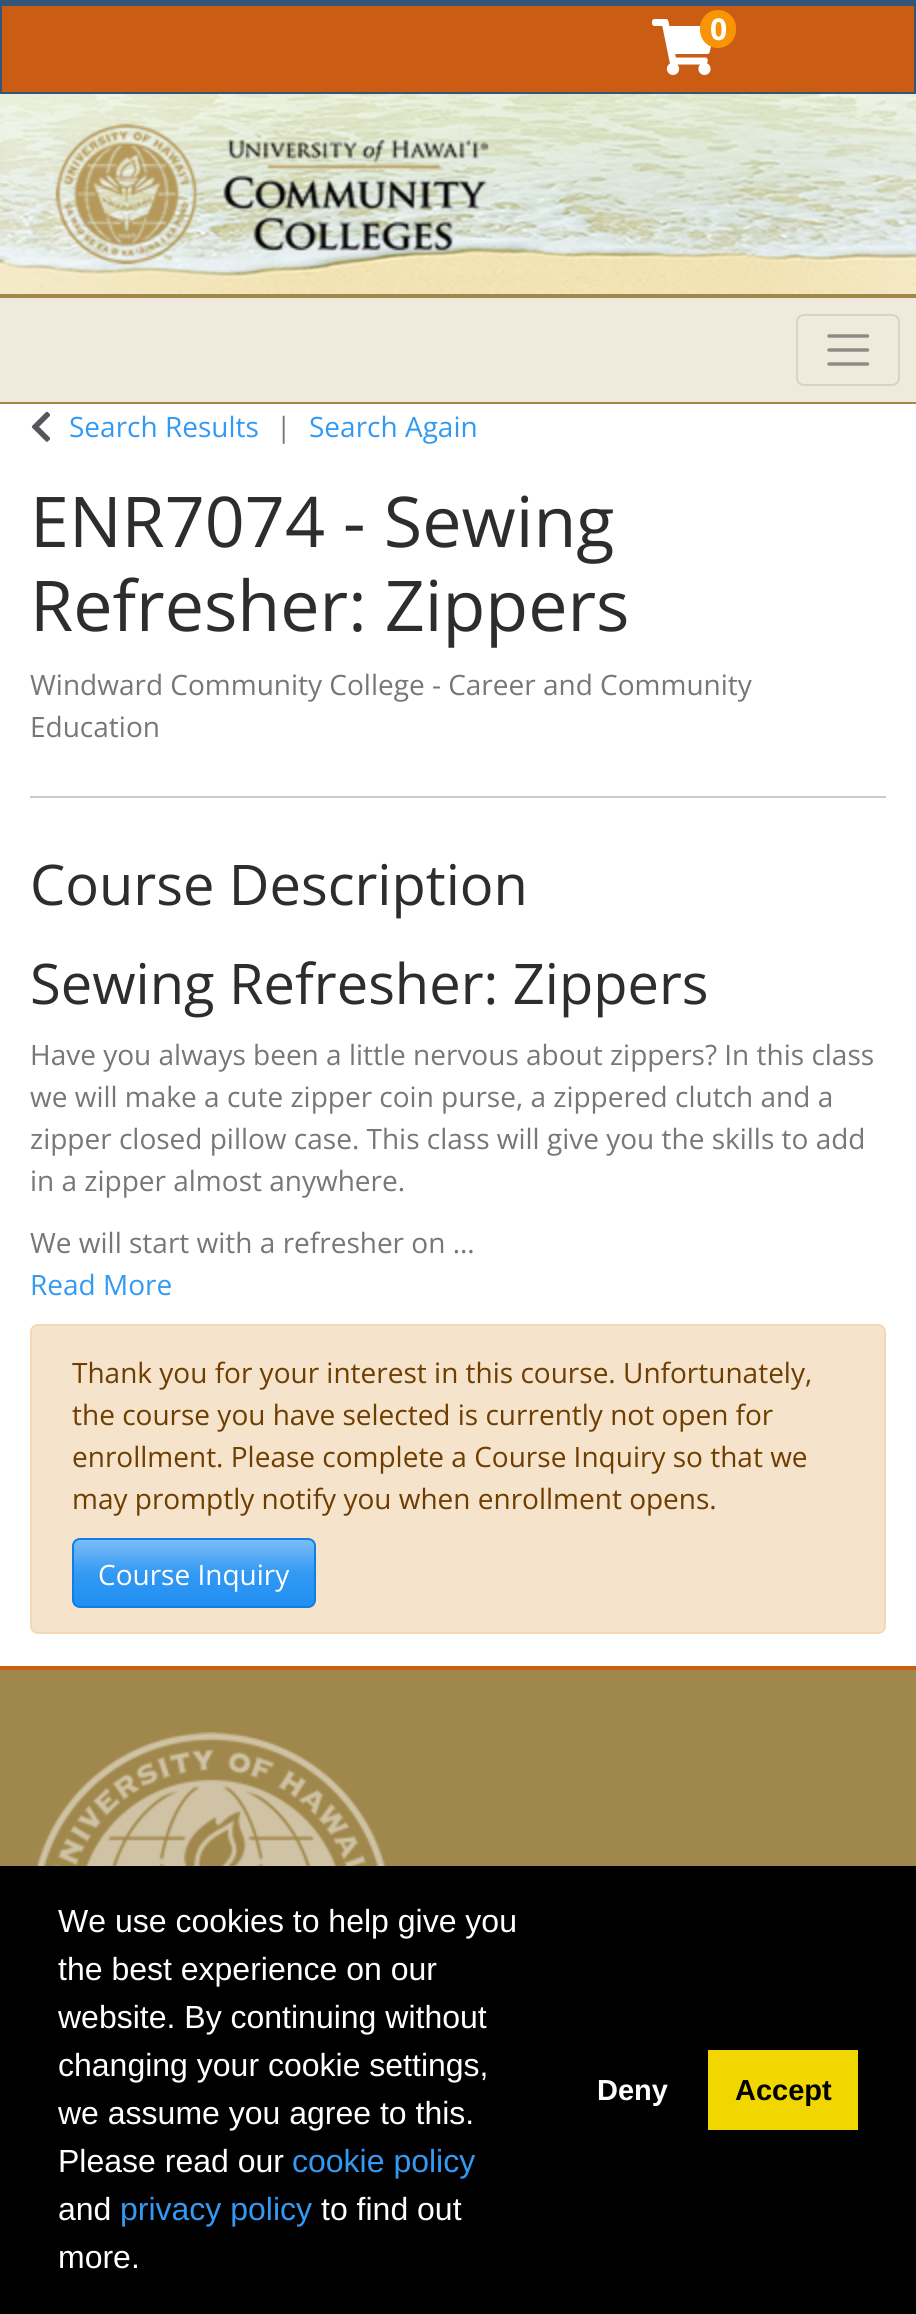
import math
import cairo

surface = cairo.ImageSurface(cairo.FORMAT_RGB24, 916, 2314)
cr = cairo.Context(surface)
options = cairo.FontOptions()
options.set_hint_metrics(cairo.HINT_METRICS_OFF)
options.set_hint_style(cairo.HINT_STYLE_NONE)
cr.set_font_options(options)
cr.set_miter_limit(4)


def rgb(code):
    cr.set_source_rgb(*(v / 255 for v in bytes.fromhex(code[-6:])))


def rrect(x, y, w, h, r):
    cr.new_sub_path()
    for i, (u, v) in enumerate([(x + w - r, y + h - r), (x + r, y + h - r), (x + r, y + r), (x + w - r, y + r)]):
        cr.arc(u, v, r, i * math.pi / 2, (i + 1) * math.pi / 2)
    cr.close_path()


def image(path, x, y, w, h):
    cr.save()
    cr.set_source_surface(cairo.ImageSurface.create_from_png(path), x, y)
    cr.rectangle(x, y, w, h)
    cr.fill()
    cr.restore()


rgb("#ffffff")
cr.paint()
rgb("#345578")
cr.rectangle(0, 0, 916, 4)
cr.fill()
rgb("#ca5c13")
cr.rectangle(1, 5, 914, 88)
cr.fill_preserve()
rgb("#345578")
cr.stroke()
image("img/1.png", 652, 19, 59, 56)
rgb("#f89406")
rrect(700, 10, 36, 38, 18)
cr.fill()
image("img/2.png", 0, 94, 916, 200)
image("img/3.png", 55, 123, 434, 142)
for x, y, w, h, color in [
    (0, 294, 916, 4, "#a0874b"),
    (0, 402, 916, 2, "#a0874b"),
    (0, 298, 916, 104, "#efeadc"),
]:
    rgb(color)
    cr.rectangle(x, y, w, h)
    cr.fill()
rrect(797, 315, 102, 70, 7)
rgb("#d7d3c6")
cr.stroke()
cr.new_path()
cr.move_to(829, 336)
cr.line_to(867.5, 336)
cr.move_to(829, 350)
cr.line_to(867.5, 350)
cr.move_to(829, 364)
cr.line_to(867.5, 364)
rgb("#8f8c84")
cr.set_line_width(3.5)
cr.set_line_cap(cairo.LINE_CAP_ROUND)
cr.stroke()
image("img/4.png", 31, 411, 20, 31)
rgb("#cccccc")
cr.rectangle(30, 796, 856, 2)
cr.fill()
rgb("#f6e3cc")
rrect(31, 1325, 854, 308, 7)
cr.fill_preserve()
rgb("#f3d8b8")
cr.set_line_width(2)
cr.set_line_cap(cairo.LINE_CAP_BUTT)
cr.stroke()
cr.save()
rrect(72, 1538, 244, 70, 8)
cr.clip()
gradient = cairo.LinearGradient(194, 1540, 194, 1606)
gradient.add_color_stop_rgba(0, 0.482, 0.741, 0.969, 1)
gradient.add_color_stop_rgba(0.5, 0.2, 0.6, 0.953, 1)
gradient.add_color_stop_rgba(1, 0.125, 0.561, 0.949, 1)
cr.set_source(gradient)
cr.rectangle(74, 1540, 240, 66)
cr.fill()
cr.restore()
rrect(73, 1539, 242, 68, 7)
rgb("#0e80e5")
cr.stroke()
rgb("#ca5c13")
cr.rectangle(0, 1666, 916, 4)
cr.fill()
rgb("#a0874b")
cr.rectangle(0, 1670, 916, 196)
cr.fill()
image("img/5.png", 36, 1732, 351, 134)
rgb("#000000")
cr.rectangle(0, 1866, 916, 448)
cr.fill()
rgb("#f1d600")
cr.rectangle(708, 2050, 150, 80)
cr.fill()
cr.select_font_face("Open Sans", cairo.FONT_SLANT_NORMAL, cairo.FONT_WEIGHT_BOLD)
cr.set_font_size(30)
rgb("#ffffff")
cr.move_to(710, 40)
cr.show_text("0")
cr.select_font_face("Open Sans")
cr.set_font_size(28)
rgb("#3399f3")
cr.move_to(69, 437)
cr.show_text("Search Results")
rgb("#777777")
cr.move_to(276, 437)
cr.show_text("|")
rgb("#3399f3")
cr.move_to(309, 437)
cr.show_text("Search Again")
cr.set_font_size(70)
rgb("#2d2d2d")
cr.move_to(30, 547)
cr.show_text("ENR7074 - Sewing")
cr.move_to(30, 631)
cr.show_text("Refresher: Zippers")
cr.set_font_size(28)
rgb("#777777")
cr.move_to(30, 695)
cr.show_text("Windward Community College - Career and Community")
cr.move_to(30, 737)
cr.show_text("Education")
cr.set_font_size(56)
rgb("#2d2d2d")
cr.move_to(30, 905)
cr.show_text("Course Description")
cr.move_to(30, 1004)
cr.show_text("Sewing Refresher: Zippers")
cr.set_font_size(28)
rgb("#777777")
for x, y, s in [
    (30, 1065, "Have you always been a little nervous about zippers? In this class"),
    (30, 1107, "we will make a cute zipper coin purse, a zippered clutch and a"),
    (30, 1149, "zipper closed pillow case. This class will give you the skills to add"),
    (30, 1191, "in a zipper almost anywhere."),
    (30, 1253, "We will start with a refresher on ..."),
]:
    cr.move_to(x, y)
    cr.show_text(s)
rgb("#3399f3")
cr.move_to(30, 1295)
cr.show_text("Read More")
rgb("#6e3d00")
for x, y, s in [
    (72, 1383, "Thank you for your interest in this course. Unfortunately,"),
    (72, 1425, "the course you have selected is currently not open for"),
    (72, 1467, "enrollment. Please complete a Course Inquiry so that we"),
    (72, 1509, "may promptly notify you when enrollment opens."),
]:
    cr.move_to(x, y)
    cr.show_text(s)
rgb("#ffffff")
cr.move_to(98, 1585)
cr.show_text("Course Inquiry")
cr.select_font_face("Liberation Sans")
cr.set_font_size(32)
for x, y, s in [
    (58, 1932, "We use cookies to help give you"),
    (58, 1980, "the best experience on our"),
    (58, 2028, "website. By continuing without"),
    (58, 2076, "changing your cookie settings,"),
    (58, 2124, "we assume you agree to this."),
    (58, 2172, "Please read our"),
]:
    cr.move_to(x, y)
    cr.show_text(s)
rgb("#3399f3")
cr.move_to(292, 2172)
cr.show_text("cookie policy")
rgb("#ffffff")
cr.move_to(58, 2220)
cr.show_text("and")
rgb("#3399f3")
cr.move_to(120, 2220)
cr.show_text("privacy policy")
rgb("#ffffff")
cr.move_to(321, 2220)
cr.show_text("to find out")
cr.move_to(58, 2268)
cr.show_text("more.")
cr.select_font_face("Liberation Sans", cairo.FONT_SLANT_NORMAL, cairo.FONT_WEIGHT_BOLD)
cr.set_font_size(29)
cr.move_to(597, 2100)
cr.show_text("Deny")
rgb("#000000")
cr.move_to(735, 2100)
cr.show_text("Accept")
surface.write_to_png("page.png")
